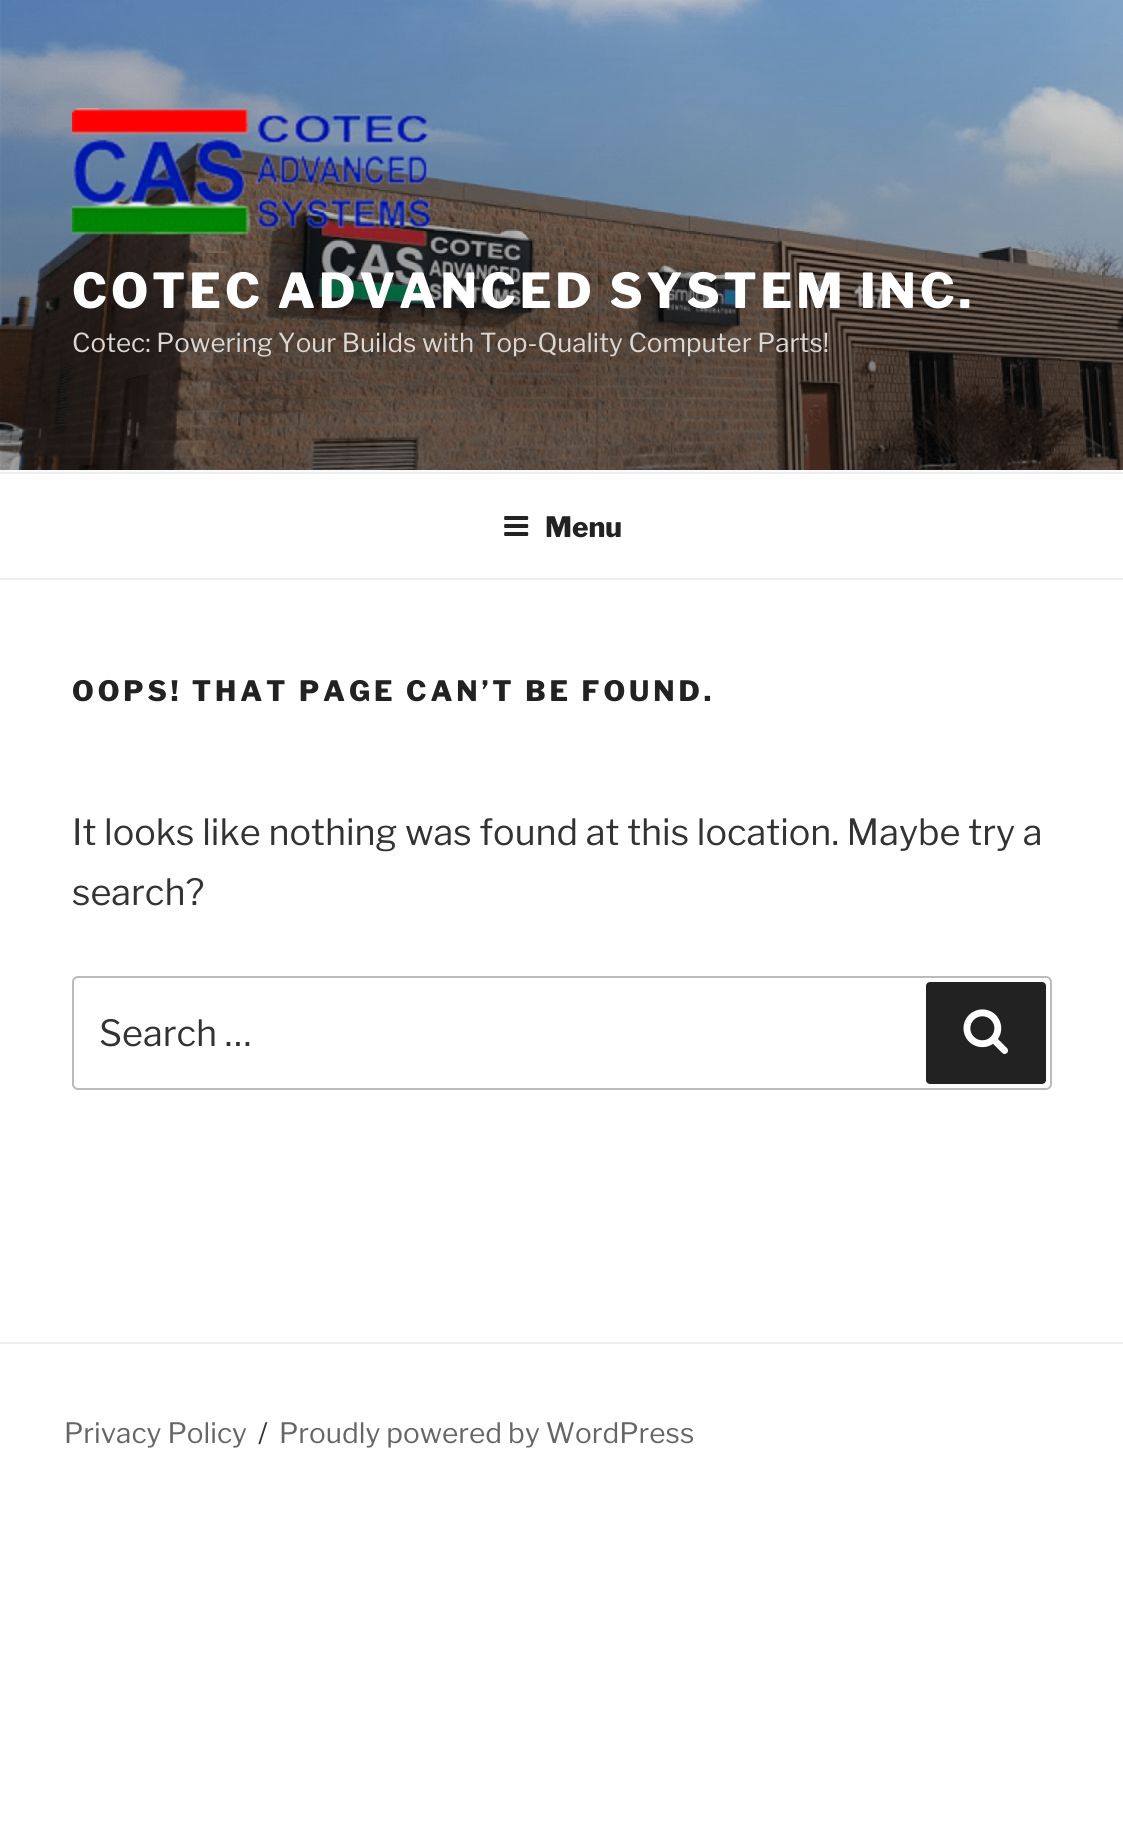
import math
import cairo

surface = cairo.ImageSurface(cairo.FORMAT_RGB24, 1123, 1839)
cr = cairo.Context(surface)
options = cairo.FontOptions()
options.set_hint_metrics(cairo.HINT_METRICS_OFF)
options.set_hint_style(cairo.HINT_STYLE_NONE)
cr.set_font_options(options)
cr.set_miter_limit(4)


def rgb(code):
    cr.set_source_rgb(*(v / 255 for v in bytes.fromhex(code[-6:])))


def tracked(x, y, s, letter, word):
    cr.move_to(x, y)
    for ch in s:
        cr.show_text(ch)
        cr.rel_move_to(letter + word * (ch == ' '), 0)


def rrect(x, y, w, h, r):
    cr.new_sub_path()
    for i, (u, v) in enumerate([(x + w - r, y + h - r), (x + r, y + h - r), (x + r, y + r), (x + w - r, y + r)]):
        cr.arc(u, v, r, i * math.pi / 2, (i + 1) * math.pi / 2)
    cr.close_path()


def image(path, x, y, w, h):
    cr.save()
    cr.set_source_surface(cairo.ImageSurface.create_from_png(path), x, y)
    cr.rectangle(x, y, w, h)
    cr.fill()
    cr.restore()


rgb("#ffffff")
cr.paint()
rgb("#fafafa")
cr.rectangle(0, 470, 1123, 2)
cr.fill()
image("img/1.png", 0, 0, 1123, 470)
image("img/2.png", 72, 108, 361, 127)
rgb("#eeeeee")
cr.rectangle(0, 472, 1123, 2)
cr.fill()
cr.rectangle(0, 578, 1123, 2)
cr.fill()
image("img/3.png", 504, 516, 25, 20)
rrect(73, 977, 978, 112, 5)
rgb("#bbbbbb")
cr.stroke()
rgb("#222222")
rrect(926, 982, 120, 102, 4)
cr.fill()
image("img/4.png", 963, 1009, 46, 45)
rgb("#eeeeee")
cr.rectangle(0, 1342, 1123, 2)
cr.fill()
cr.select_font_face("Libre Franklin Thin")
cr.set_font_size(48)
rgb("#ffffff")
tracked(72, 308, "COTEC ADVANCED SYSTEM INC.", 3.85, 0)
cr.select_font_face("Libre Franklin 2 Thin")
cr.set_font_size(26)
rgb("#dbd8d6")
cr.move_to(72, 352)
cr.show_text("Cotec: Powering Your Builds with Top-Quality Computer Parts!")
cr.select_font_face("Libre Franklin Thin")
cr.set_font_size(28)
rgb("#222222")
cr.move_to(545, 537)
cr.show_text("Menu")
tracked(72, 701, "OOPS! THAT PAGE CAN’T BE FOUND.", 3.9, 0)
cr.select_font_face("Libre Franklin 2 Thin")
cr.set_font_size(36)
rgb("#333333")
for x, y, s in [
    (72, 845, "It looks like nothing was found at this location. Maybe try a"),
    (72, 905, "search?"),
    (99, 1046, "Search …"),
]:
    cr.move_to(x, y)
    cr.show_text(s)
cr.set_font_size(28)
rgb("#666666")
cr.move_to(64, 1443)
cr.show_text("Privacy Policy")
rgb("#333333")
cr.move_to(258, 1443)
cr.show_text("/")
rgb("#666666")
cr.move_to(279, 1443)
cr.show_text("Proudly powered by WordPress")
surface.write_to_png("page.png")
